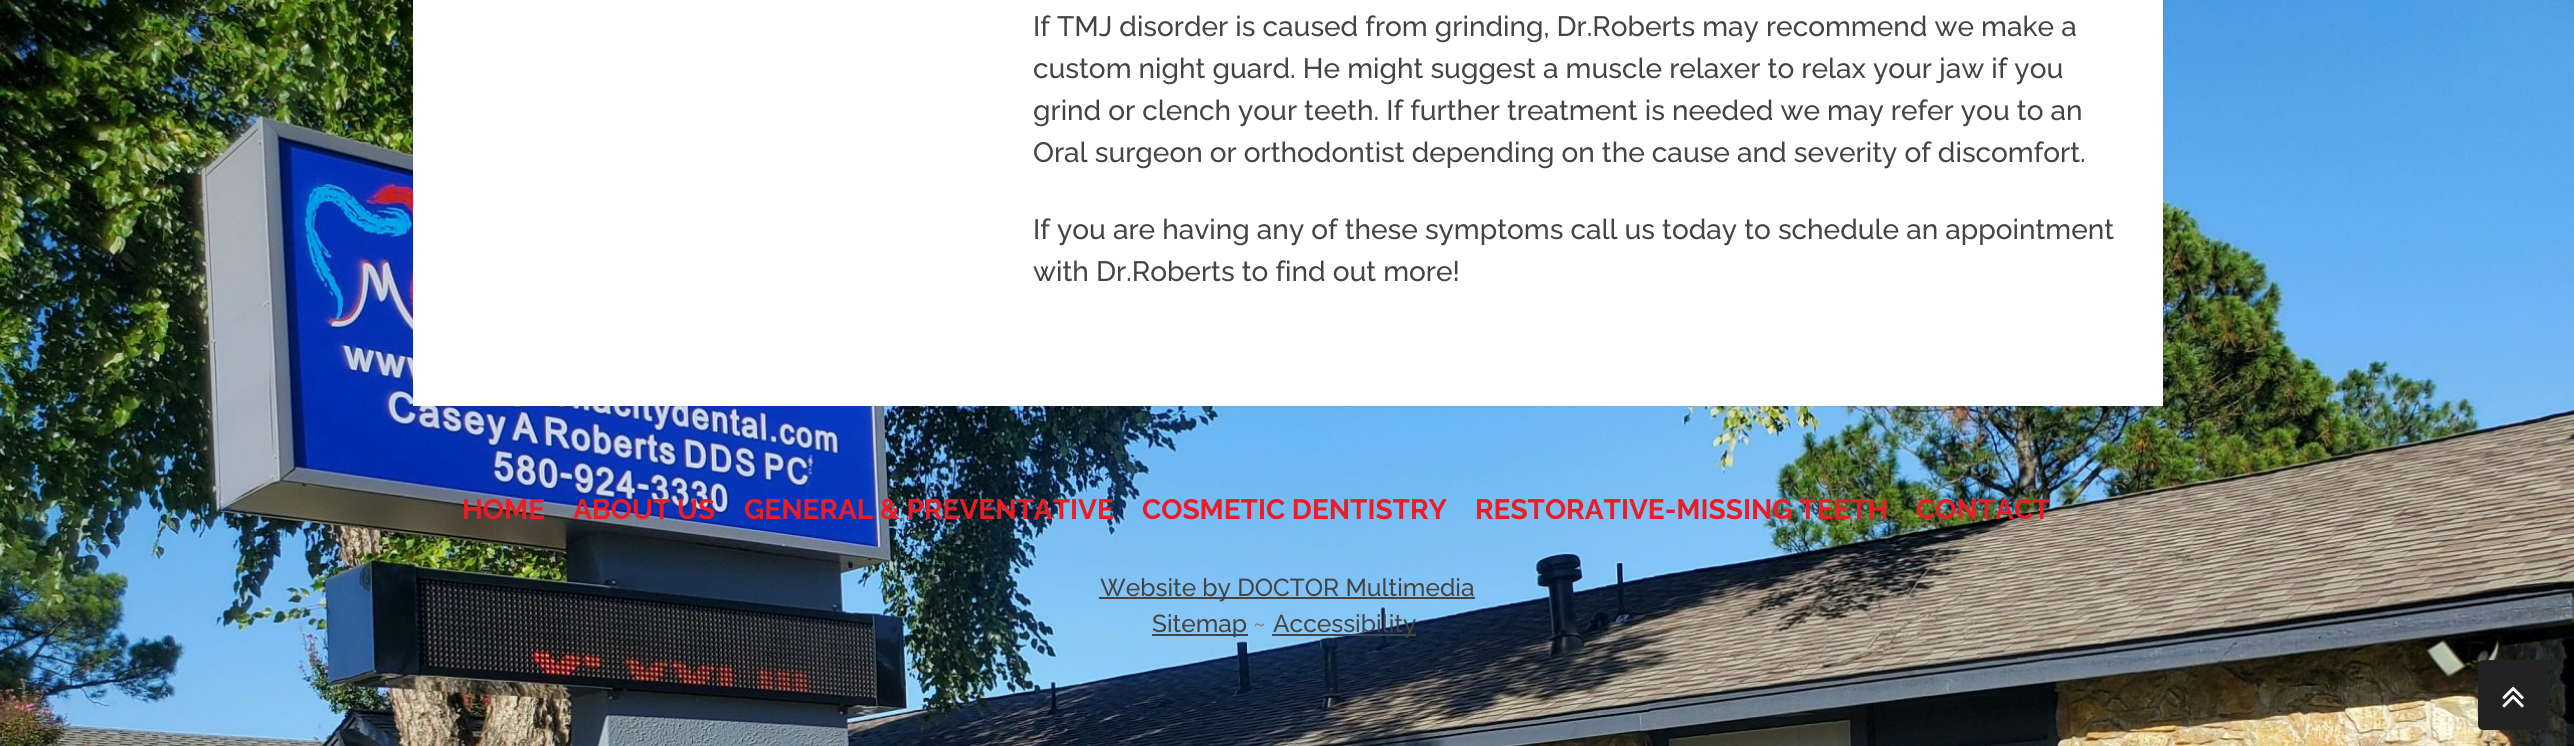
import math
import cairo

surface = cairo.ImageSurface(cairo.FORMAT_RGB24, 2574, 746)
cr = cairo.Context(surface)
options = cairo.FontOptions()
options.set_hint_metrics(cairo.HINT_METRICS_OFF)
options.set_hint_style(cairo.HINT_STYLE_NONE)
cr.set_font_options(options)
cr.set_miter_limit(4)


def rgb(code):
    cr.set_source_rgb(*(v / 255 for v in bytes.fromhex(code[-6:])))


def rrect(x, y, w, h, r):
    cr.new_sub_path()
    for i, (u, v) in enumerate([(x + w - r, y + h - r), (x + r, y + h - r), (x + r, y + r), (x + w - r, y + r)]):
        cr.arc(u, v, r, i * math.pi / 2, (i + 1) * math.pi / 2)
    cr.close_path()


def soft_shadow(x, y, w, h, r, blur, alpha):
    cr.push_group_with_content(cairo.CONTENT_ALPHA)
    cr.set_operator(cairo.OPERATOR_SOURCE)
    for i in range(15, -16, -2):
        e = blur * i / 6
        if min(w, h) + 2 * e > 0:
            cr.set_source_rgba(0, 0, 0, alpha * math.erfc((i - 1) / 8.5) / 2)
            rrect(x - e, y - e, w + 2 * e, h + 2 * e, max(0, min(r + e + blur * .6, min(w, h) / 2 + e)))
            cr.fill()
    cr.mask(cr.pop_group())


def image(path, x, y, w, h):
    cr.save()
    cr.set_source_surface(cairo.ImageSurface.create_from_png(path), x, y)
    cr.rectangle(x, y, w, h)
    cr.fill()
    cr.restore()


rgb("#ffffff")
cr.paint()
image("img/1.png", 0, 0, 2574, 746)
rgb("#323232")
soft_shadow(413, -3, 1750, 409, 0, 1, 0.1)
for x, y, w, h, color in [
    (413, 0, 1750, 406, "#ffffff"),
    (1099, 597, 376, 2, "#444444"),
    (1152, 634, 96, 2, "#444444"),
    (1272, 634, 144, 2, "#444444"),
]:
    rgb(color)
    cr.rectangle(x, y, w, h)
    cr.fill()
rgb("#222222")
rrect(2478, 660, 70, 70, 5)
cr.fill()
image("img/2.png", 2502, 686, 22, 22)
cr.select_font_face("Raleway Medium")
cr.set_font_size(28)
rgb("#444444")
for x, y, s in [
    (1033, 36, "If TMJ disorder is caused from grinding, Dr.Roberts may recommend we make a"),
    (1033, 78, "custom night guard. He might suggest a muscle relaxer to relax your jaw if you"),
    (1033, 120, "grind or clench your teeth. If further treatment is needed we may refer you to an"),
    (1033, 162, "Oral surgeon or orthodontist depending on the cause and severity of discomfort."),
    (1033, 239, "If you are having any of these symptoms call us today to schedule an appointment"),
    (1033, 281, "with Dr.Roberts to find out more!"),
]:
    cr.move_to(x, y)
    cr.show_text(s)
cr.select_font_face("Raleway", cairo.FONT_SLANT_NORMAL, cairo.FONT_WEIGHT_BOLD)
rgb("#ed1c24")
for x, y, s in [
    (462, 519, "HOME"),
    (573, 519, "ABOUT US"),
    (744, 519, "GENERAL & PREVENTATIVE"),
    (1142, 519, "COSMETIC DENTISTRY"),
    (1475, 519, "RESTORATIVE-MISSING TEETH"),
    (1916, 519, "CONTACT"),
]:
    cr.move_to(x, y)
    cr.show_text(s)
cr.select_font_face("Raleway Medium")
cr.set_font_size(24.5)
rgb("#444444")
cr.move_to(1100, 596)
cr.show_text("Website by DOCTOR Multimedia")
cr.move_to(1152, 632)
cr.show_text("Sitemap")
rgb("#7e7d7d")
cr.move_to(1253, 632)
cr.show_text("~")
rgb("#444444")
cr.move_to(1273, 632)
cr.show_text("Accessibility")
surface.write_to_png("page.png")
